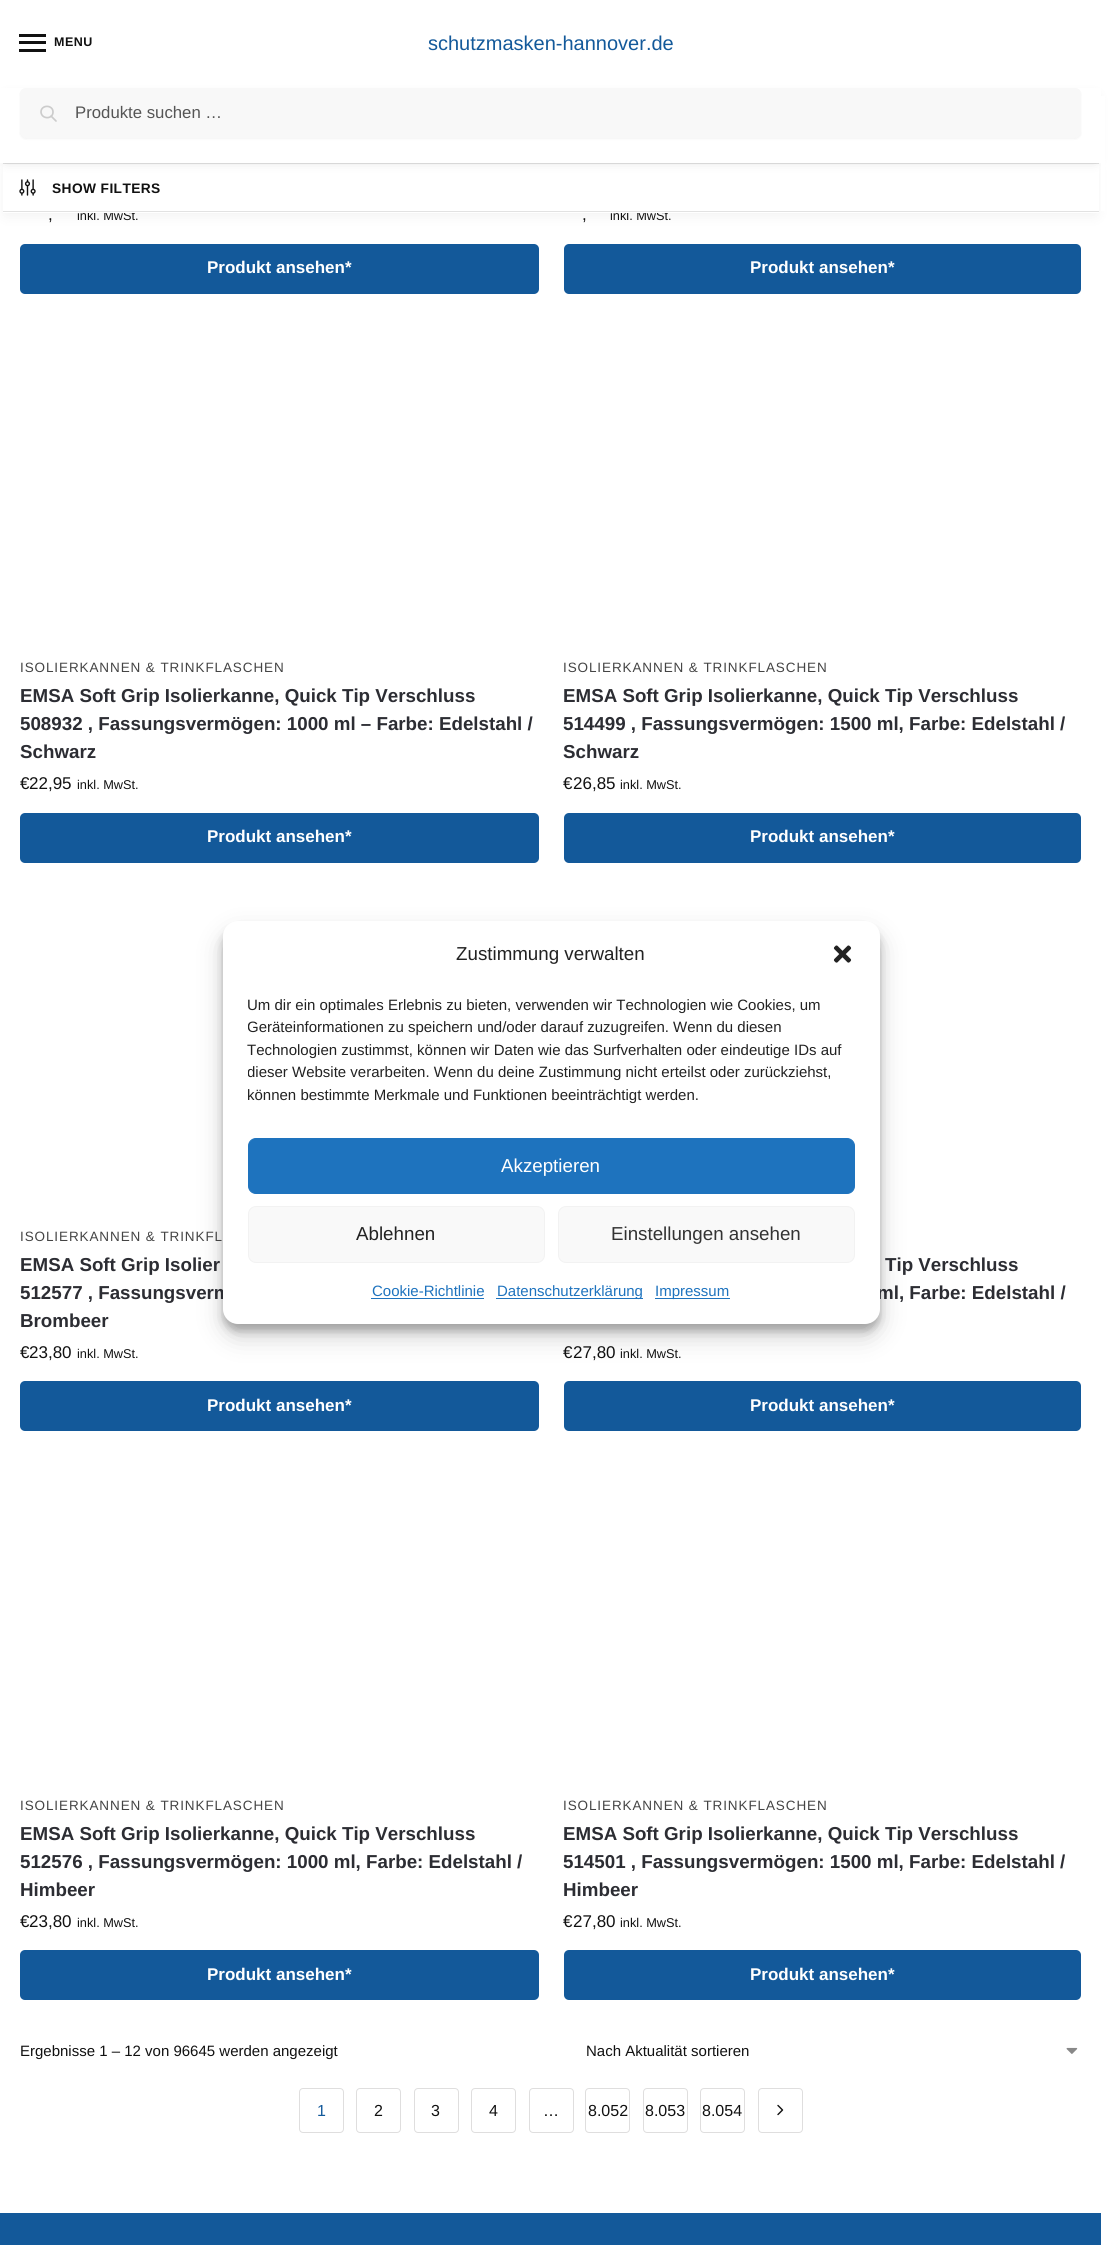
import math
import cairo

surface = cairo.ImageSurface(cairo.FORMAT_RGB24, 1120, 2245)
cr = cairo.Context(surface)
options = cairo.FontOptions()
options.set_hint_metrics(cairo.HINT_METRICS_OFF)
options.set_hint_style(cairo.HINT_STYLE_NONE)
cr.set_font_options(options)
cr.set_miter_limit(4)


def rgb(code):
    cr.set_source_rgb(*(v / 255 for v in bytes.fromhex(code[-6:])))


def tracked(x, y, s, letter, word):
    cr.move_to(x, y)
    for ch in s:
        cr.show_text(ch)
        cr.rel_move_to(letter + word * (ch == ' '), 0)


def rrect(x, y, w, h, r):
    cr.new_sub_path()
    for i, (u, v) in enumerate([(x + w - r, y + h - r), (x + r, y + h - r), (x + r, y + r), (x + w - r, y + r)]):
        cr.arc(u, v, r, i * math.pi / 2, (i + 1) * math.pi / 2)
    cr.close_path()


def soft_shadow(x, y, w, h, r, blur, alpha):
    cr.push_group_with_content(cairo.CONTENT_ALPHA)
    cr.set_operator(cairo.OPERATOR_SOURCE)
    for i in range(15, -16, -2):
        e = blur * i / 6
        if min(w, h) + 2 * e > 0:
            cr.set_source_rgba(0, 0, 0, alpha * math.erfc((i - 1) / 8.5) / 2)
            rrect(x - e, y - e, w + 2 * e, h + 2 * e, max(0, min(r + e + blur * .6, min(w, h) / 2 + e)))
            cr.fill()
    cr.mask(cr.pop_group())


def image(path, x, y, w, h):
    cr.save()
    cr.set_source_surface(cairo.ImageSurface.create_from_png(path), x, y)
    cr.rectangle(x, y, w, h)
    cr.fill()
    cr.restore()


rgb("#ffffff")
cr.paint()
for x, y, w, h, color in [
    (19, 34, 27, 3, "#111111"),
    (19, 41, 27, 3, "#111111"),
    (19, 49, 27, 3, "#111111"),
]:
    rgb(color)
    cr.rectangle(x, y, w, h)
    cr.fill()
rgb("#000000")
soft_shadow(5, 170, 1091, 45, 0, 7.5, 0.06)
rgb("#e2e2e2")
cr.rectangle(3, 163, 1096, 1)
cr.fill()
rgb("#13599a")
rrect(20, 244, 519, 50, 5)
cr.fill()
rrect(564, 244, 517, 50, 5)
cr.fill()
rrect(20, 813, 519, 50, 5)
cr.fill()
rrect(564, 813, 517, 50, 5)
cr.fill()
rrect(20, 1381, 519, 50, 5)
cr.fill()
rrect(564, 1381, 517, 50, 5)
cr.fill()
rrect(20, 1950, 519, 50, 5)
cr.fill()
rrect(564, 1950, 517, 50, 5)
cr.fill()
image("img/2.png", 1066, 2047, 12, 7)
rrect(299.5, 2088.5, 44, 44, 3.5)
rgb("#dfdede")
cr.set_line_width(1)
cr.stroke()
rrect(356.5, 2088.5, 44, 44, 3.5)
cr.stroke()
rrect(414.5, 2088.5, 44, 44, 3.5)
cr.stroke()
rrect(471.5, 2088.5, 44, 44, 3.5)
cr.stroke()
rrect(529.5, 2088.5, 44, 44, 3.5)
cr.stroke()
rrect(585.5, 2088.5, 44, 44, 3.5)
cr.stroke()
rrect(643.5, 2088.5, 44, 44, 3.5)
cr.stroke()
rrect(700.5, 2088.5, 44, 44, 3.5)
cr.stroke()
rrect(758.5, 2088.5, 44, 44, 3.5)
cr.stroke()
cr.new_path()
cr.move_to(778, 2105.5)
cr.line_to(782.5, 2110)
cr.line_to(778, 2114.5)
rgb("#111111")
cr.set_line_width(1.4)
cr.set_line_cap(cairo.LINE_CAP_ROUND)
cr.set_line_join(cairo.LINE_JOIN_ROUND)
cr.stroke()
rgb("#13599a")
cr.rectangle(0, 2213, 1101, 32)
cr.fill()
rgb("#000000")
soft_shadow(223, 929, 657, 402, 15, 4, 0.23)
soft_shadow(223, 934, 657, 402, 15, 12.5, 0.19)
cr.select_font_face("Liberation Sans", cairo.FONT_SLANT_NORMAL, cairo.FONT_WEIGHT_BOLD)
cr.set_font_size(12.5)
rgb("#111111")
tracked(54, 46, "MENU", 0.5, 0)
cr.select_font_face("Liberation Sans")
cr.set_font_size(20)
rgb("#13599a")
cr.move_to(428, 50)
cr.show_text("schutzmasken-hannover.de")
cr.set_font_size(17)
rgb("#111111")
cr.move_to(48, 220)
cr.show_text(",")
cr.set_font_size(12.75)
cr.move_to(77, 220)
cr.show_text("inkl. MwSt.")
cr.select_font_face("Liberation Sans", cairo.FONT_SLANT_NORMAL, cairo.FONT_WEIGHT_BOLD)
cr.set_font_size(17)
rgb("#ffffff")
cr.move_to(207, 273)
cr.show_text("Produkt ansehen*")
cr.select_font_face("Liberation Sans")
rgb("#111111")
cr.move_to(582, 220)
cr.show_text(",")
cr.set_font_size(12.75)
cr.move_to(610, 220)
cr.show_text("inkl. MwSt.")
rgb("#ffffff")
cr.rectangle(3, 164, 1096, 49)
cr.fill()
rgb("#000000")
soft_shadow(6, 98, 1089, 62, 0, 6, 0.18)
rgb("#ffffff")
cr.rectangle(1101, 96, 4, 115)
cr.fill()
cr.rectangle(0, 88, 1101, 75)
cr.fill()
rgb("#000000")
soft_shadow(20, 89, 1061, 50, 6, 1, 0.05)
rgb("#f8f8f8")
rrect(20, 88, 1061, 50, 6)
cr.fill()
cr.new_path()
cr.move_to(56, 121)
cr.line_to(51, 116)
cr.move_to(53, 112)
cr.curve_to(53, 119.5, 41.5, 119.5, 41, 112)
cr.curve_to(41, 104.5, 53, 104.5, 53, 112)
cr.close_path()
rgb("#cccccc")
cr.set_line_width(1.7)
cr.stroke()
cr.set_font_size(16.75)
rgb("#555555")
cr.move_to(75, 118)
cr.show_text("Produkte suchen …")
image("img/1.png", 19, 179, 17, 17)
cr.select_font_face("Liberation Sans", cairo.FONT_SLANT_NORMAL, cairo.FONT_WEIGHT_BOLD)
cr.set_font_size(13.75)
rgb("#111111")
tracked(52, 193, "SHOW FILTERS", 0.4, 0)
rgb("#e2e2e2")
cr.rectangle(3, 211, 1096, 1)
cr.fill()
cr.set_font_size(17)
rgb("#ffffff")
cr.move_to(750, 273)
cr.show_text("Produkt ansehen*")
cr.select_font_face("Liberation Sans")
cr.set_font_size(13.5)
rgb("#444444")
tracked(20, 672, "ISOLIERKANNEN & TRINKFLASCHEN", 0.9, 0)
cr.select_font_face("Liberation Sans", cairo.FONT_SLANT_NORMAL, cairo.FONT_WEIGHT_BOLD)
cr.set_font_size(18.75)
rgb("#2c2d33")
for x, y, s in [
    (20, 702, "EMSA Soft Grip Isolierkanne, Quick Tip Verschluss"),
    (20, 730, "508932 , Fassungsvermögen: 1000 ml – Farbe: Edelstahl /"),
    (20, 758, "Schwarz"),
]:
    cr.move_to(x, y)
    cr.show_text(s)
cr.select_font_face("Liberation Sans")
cr.set_font_size(17)
rgb("#111111")
cr.move_to(20, 789)
cr.show_text("€")
cr.move_to(29, 789)
cr.show_text("22,95")
cr.set_font_size(12.75)
cr.move_to(77, 789)
cr.show_text("inkl. MwSt.")
cr.select_font_face("Liberation Sans", cairo.FONT_SLANT_NORMAL, cairo.FONT_WEIGHT_BOLD)
cr.set_font_size(17)
rgb("#ffffff")
cr.move_to(207, 842)
cr.show_text("Produkt ansehen*")
cr.select_font_face("Liberation Sans")
cr.set_font_size(13.5)
rgb("#444444")
tracked(563, 672, "ISOLIERKANNEN & TRINKFLASCHEN", 0.9, 0)
cr.select_font_face("Liberation Sans", cairo.FONT_SLANT_NORMAL, cairo.FONT_WEIGHT_BOLD)
cr.set_font_size(18.75)
rgb("#2c2d33")
for x, y, s in [
    (563, 702, "EMSA Soft Grip Isolierkanne, Quick Tip Verschluss"),
    (563, 730, "514499 , Fassungsvermögen: 1500 ml, Farbe: Edelstahl /"),
    (563, 758, "Schwarz"),
]:
    cr.move_to(x, y)
    cr.show_text(s)
cr.select_font_face("Liberation Sans")
cr.set_font_size(17)
rgb("#111111")
cr.move_to(563, 789)
cr.show_text("€")
cr.move_to(573, 789)
cr.show_text("26,85")
cr.set_font_size(12.75)
cr.move_to(620, 789)
cr.show_text("inkl. MwSt.")
cr.select_font_face("Liberation Sans", cairo.FONT_SLANT_NORMAL, cairo.FONT_WEIGHT_BOLD)
cr.set_font_size(17)
rgb("#ffffff")
cr.move_to(750, 842)
cr.show_text("Produkt ansehen*")
cr.select_font_face("Liberation Sans")
cr.set_font_size(13.5)
rgb("#444444")
tracked(20, 1241, "ISOLIERKANNEN & TRINKFL", 0.9, 0)
cr.select_font_face("Liberation Sans", cairo.FONT_SLANT_NORMAL, cairo.FONT_WEIGHT_BOLD)
cr.set_font_size(18.75)
rgb("#2c2d33")
for x, y, s in [
    (20, 1271, "EMSA Soft Grip Isolier"),
    (20, 1299, "512577 , Fassungsverm"),
    (20, 1327, "Brombeer"),
]:
    cr.move_to(x, y)
    cr.show_text(s)
cr.select_font_face("Liberation Sans")
cr.set_font_size(17)
rgb("#111111")
cr.move_to(20, 1358)
cr.show_text("€")
cr.move_to(29, 1358)
cr.show_text("23,80")
cr.set_font_size(12.75)
cr.move_to(77, 1358)
cr.show_text("inkl. MwSt.")
cr.select_font_face("Liberation Sans", cairo.FONT_SLANT_NORMAL, cairo.FONT_WEIGHT_BOLD)
cr.set_font_size(17)
rgb("#ffffff")
cr.move_to(207, 1411)
cr.show_text("Produkt ansehen*")
cr.set_font_size(18.75)
rgb("#2c2d33")
cr.move_to(885, 1271)
cr.show_text("Tip Verschluss")
cr.move_to(877, 1299)
cr.show_text("ml, Farbe: Edelstahl /")
cr.select_font_face("Liberation Sans")
cr.set_font_size(17)
rgb("#111111")
cr.move_to(563, 1358)
cr.show_text("€")
cr.move_to(573, 1358)
cr.show_text("27,80")
cr.set_font_size(12.75)
cr.move_to(620, 1358)
cr.show_text("inkl. MwSt.")
cr.select_font_face("Liberation Sans", cairo.FONT_SLANT_NORMAL, cairo.FONT_WEIGHT_BOLD)
cr.set_font_size(17)
rgb("#ffffff")
cr.move_to(750, 1411)
cr.show_text("Produkt ansehen*")
cr.select_font_face("Liberation Sans")
cr.set_font_size(13.5)
rgb("#444444")
tracked(20, 1810, "ISOLIERKANNEN & TRINKFLASCHEN", 0.9, 0)
cr.select_font_face("Liberation Sans", cairo.FONT_SLANT_NORMAL, cairo.FONT_WEIGHT_BOLD)
cr.set_font_size(18.75)
rgb("#2c2d33")
for x, y, s in [
    (20, 1840, "EMSA Soft Grip Isolierkanne, Quick Tip Verschluss"),
    (20, 1868, "512576 , Fassungsvermögen: 1000 ml, Farbe: Edelstahl /"),
    (20, 1896, "Himbeer"),
]:
    cr.move_to(x, y)
    cr.show_text(s)
cr.select_font_face("Liberation Sans")
cr.set_font_size(17)
rgb("#111111")
cr.move_to(20, 1927)
cr.show_text("€")
cr.move_to(29, 1927)
cr.show_text("23,80")
cr.set_font_size(12.75)
cr.move_to(77, 1927)
cr.show_text("inkl. MwSt.")
cr.select_font_face("Liberation Sans", cairo.FONT_SLANT_NORMAL, cairo.FONT_WEIGHT_BOLD)
cr.set_font_size(17)
rgb("#ffffff")
cr.move_to(207, 1980)
cr.show_text("Produkt ansehen*")
cr.select_font_face("Liberation Sans")
cr.set_font_size(13.5)
rgb("#444444")
tracked(563, 1810, "ISOLIERKANNEN & TRINKFLASCHEN", 0.9, 0)
cr.select_font_face("Liberation Sans", cairo.FONT_SLANT_NORMAL, cairo.FONT_WEIGHT_BOLD)
cr.set_font_size(18.75)
rgb("#2c2d33")
for x, y, s in [
    (563, 1840, "EMSA Soft Grip Isolierkanne, Quick Tip Verschluss"),
    (563, 1868, "514501 , Fassungsvermögen: 1500 ml, Farbe: Edelstahl /"),
    (563, 1896, "Himbeer"),
]:
    cr.move_to(x, y)
    cr.show_text(s)
cr.select_font_face("Liberation Sans")
cr.set_font_size(17)
rgb("#111111")
cr.move_to(563, 1927)
cr.show_text("€")
cr.move_to(573, 1927)
cr.show_text("27,80")
cr.set_font_size(12.75)
cr.move_to(620, 1927)
cr.show_text("inkl. MwSt.")
cr.select_font_face("Liberation Sans", cairo.FONT_SLANT_NORMAL, cairo.FONT_WEIGHT_BOLD)
cr.set_font_size(17)
rgb("#ffffff")
cr.move_to(750, 1980)
cr.show_text("Produkt ansehen*")
cr.select_font_face("Liberation Sans")
cr.set_font_size(15)
rgb("#111111")
cr.move_to(20, 2056)
cr.show_text("Ergebnisse 1 – 12 von 96645 werden angezeigt")
cr.move_to(586, 2056)
cr.show_text("Nach Aktualität sortieren")
cr.set_font_size(16)
rgb("#13599a")
cr.move_to(317, 2116)
cr.show_text("1")
rgb("#111111")
for x, y, s in [
    (374, 2116, "2"),
    (431, 2116, "3"),
    (489, 2116, "4"),
]:
    cr.move_to(x, y)
    cr.show_text(s)
rgb("#000000")
cr.move_to(543, 2116)
cr.show_text("…")
rgb("#111111")
for x, y, s in [
    (588, 2116, "8.052"),
    (645, 2116, "8.053"),
    (702, 2116, "8.054"),
]:
    cr.move_to(x, y)
    cr.show_text(s)
rgb("#ffffff")
rrect(223, 921, 657, 403, 15)
cr.fill()
cr.set_font_size(18.75)
rgb("#222222")
cr.move_to(456, 960)
cr.show_text("Zustimmung verwalten")
image("img/3.png", 833, 945, 19, 18)
cr.set_font_size(15)
cr.move_to(247, 1010)
cr.show_text("Um dir ein optimales Erlebnis zu bieten, verwenden wir Technologien wie Cookies, um")
cr.save()
cr.rectangle(248, 994, 607, 119)
cr.clip()
cr.move_to(247, 1032)
cr.show_text("Geräteinformationen zu speichern und/oder darauf zuzugreifen. Wenn du diesen")
cr.restore()
cr.move_to(247, 1055)
cr.show_text("Technologien zustimmst, können wir Daten wie das Surfverhalten oder eindeutige IDs auf")
cr.save()
cr.rectangle(248, 994, 607, 119)
cr.clip()
cr.move_to(247, 1077)
cr.show_text("dieser Website verarbeiten. Wenn du deine Zustimmung nicht erteilst oder zurückziehst,")
cr.move_to(247, 1100)
cr.show_text("können bestimmte Merkmale und Funktionen beeinträchtigt werden.")
cr.restore()
rgb("#1e73be")
rrect(248.5, 1138.5, 606, 55, 7.5)
cr.fill_preserve()
cr.set_line_width(1)
cr.set_line_cap(cairo.LINE_CAP_BUTT)
cr.set_line_join(cairo.LINE_JOIN_MITER)
cr.stroke()
cr.set_font_size(18.75)
rgb("#ffffff")
cr.move_to(501, 1172)
cr.show_text("Akzeptieren")
rgb("#f9f9f9")
rrect(248.5, 1206.5, 296, 56, 7.5)
cr.fill_preserve()
rgb("#f2f2f2")
cr.stroke()
rgb("#222222")
cr.move_to(356, 1240)
cr.show_text("Ablehnen")
rgb("#f9f9f9")
rrect(558.5, 1206.5, 296, 56, 7.5)
cr.fill_preserve()
rgb("#f2f2f2")
cr.stroke()
rgb("#333333")
cr.move_to(611, 1240)
cr.show_text("Einstellungen ansehen")
cr.set_font_size(15)
rgb("#1e73be")
cr.move_to(372, 1296)
cr.show_text("Cookie-Richtlinie")
cr.rectangle(371, 1298, 113, 1)
cr.fill()
cr.rectangle(496, 1298, 147, 1)
cr.fill()
cr.move_to(497, 1296)
cr.show_text("Datenschutzerklärung")
cr.rectangle(655, 1298, 75, 1)
cr.fill()
cr.move_to(655, 1296)
cr.show_text("Impressum")
surface.write_to_png("page.png")
